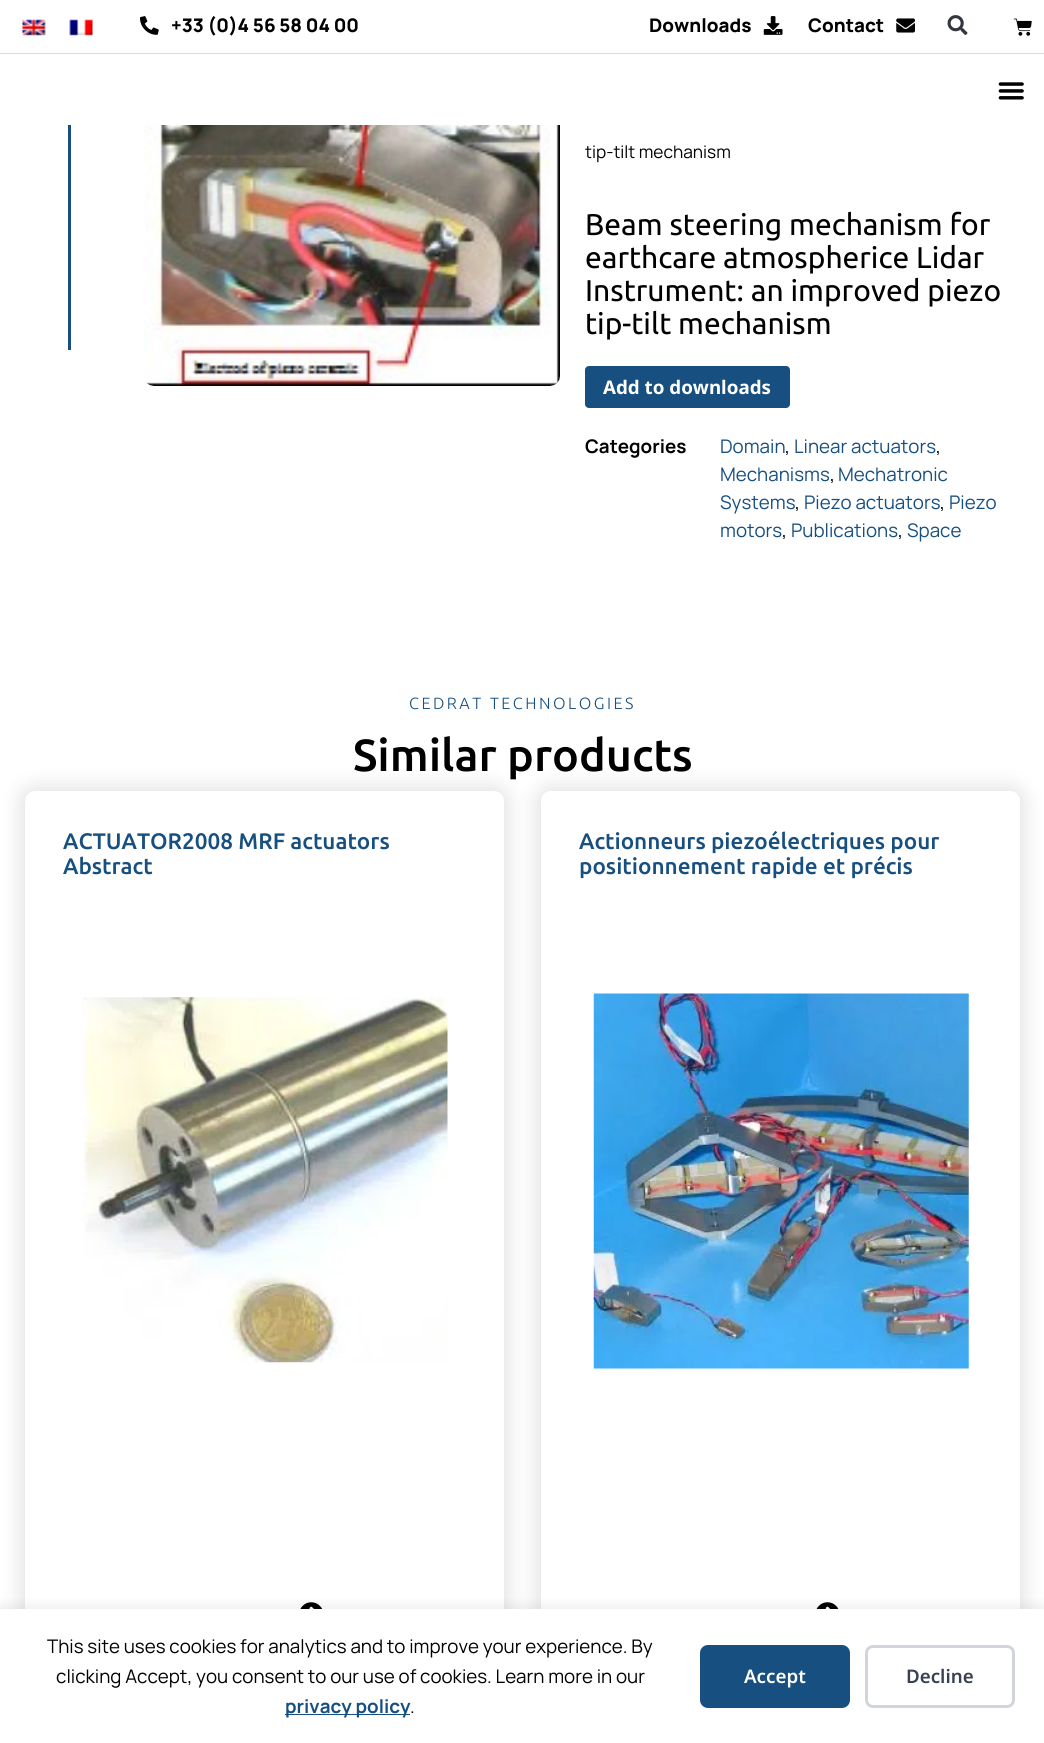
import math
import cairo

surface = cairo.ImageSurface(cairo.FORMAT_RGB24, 1044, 1743)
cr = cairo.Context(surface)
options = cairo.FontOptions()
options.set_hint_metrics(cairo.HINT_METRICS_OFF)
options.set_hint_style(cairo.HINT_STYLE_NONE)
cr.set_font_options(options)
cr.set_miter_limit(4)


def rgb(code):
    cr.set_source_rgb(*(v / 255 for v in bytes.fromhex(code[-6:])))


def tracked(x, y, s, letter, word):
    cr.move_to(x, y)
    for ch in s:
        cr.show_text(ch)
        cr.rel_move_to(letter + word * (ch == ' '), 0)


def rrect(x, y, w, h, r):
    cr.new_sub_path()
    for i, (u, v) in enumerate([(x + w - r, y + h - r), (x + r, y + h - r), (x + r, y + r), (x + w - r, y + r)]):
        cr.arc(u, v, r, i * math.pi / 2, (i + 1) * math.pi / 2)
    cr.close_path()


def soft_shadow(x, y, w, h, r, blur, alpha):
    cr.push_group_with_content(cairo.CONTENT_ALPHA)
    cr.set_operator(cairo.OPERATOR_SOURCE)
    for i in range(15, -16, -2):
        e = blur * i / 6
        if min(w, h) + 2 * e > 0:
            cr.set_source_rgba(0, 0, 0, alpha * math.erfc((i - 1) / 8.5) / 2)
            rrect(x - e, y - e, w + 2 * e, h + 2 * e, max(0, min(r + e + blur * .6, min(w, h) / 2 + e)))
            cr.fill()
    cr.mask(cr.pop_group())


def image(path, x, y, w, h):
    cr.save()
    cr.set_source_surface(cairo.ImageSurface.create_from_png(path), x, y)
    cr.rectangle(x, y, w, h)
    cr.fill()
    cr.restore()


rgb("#ffffff")
cr.paint()
rgb("#dbdbdb")
cr.rectangle(0, 53, 1044, 1)
cr.fill()
image("img/1.png", 22, 19, 24, 17)
image("img/2.png", 69, 19, 24, 17)
image("img/3.png", 140, 16, 19, 19)
image("img/4.png", 763, 16, 20, 19)
image("img/5.png", 896, 18, 19, 15)
image("img/6.png", 947, 15, 21, 20)
image("img/7.png", 1013, 18, 19, 18)
image("img/8.png", 998, 82, 26, 18)
rgb("#174f81")
cr.rectangle(68, 125, 3, 225)
cr.fill()
image("img/9.png", 144, 125, 416, 261)
rrect(585, 366, 205, 42, 4)
cr.fill()
rgb("#000000")
soft_shadow(19, 785, 491, 888, 16, 9.5, 0.1)
rgb("#ffffff")
rrect(25, 791, 479, 875, 10)
cr.fill()
image("img/10.png", 82, 997, 366, 366)
image("img/11.png", 300, 1602, 22, 7)
rgb("#000000")
soft_shadow(535, 785, 491, 888, 16, 9.5, 0.1)
rgb("#ffffff")
rrect(541, 791, 479, 875, 10)
cr.fill()
image("img/12.png", 593, 993, 376, 376)
image("img/13.png", 816, 1602, 23, 7)
rgb("#000000")
soft_shadow(0, 1606, 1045, 135, 0, 6, 0.08)
rgb("#ffffff")
cr.rectangle(0, 1609, 1044, 134)
cr.fill()
rgb("#174f81")
cr.rectangle(285, 1714, 125, 1)
cr.fill()
rrect(700, 1645, 150, 63, 8)
cr.fill()
rrect(866.5, 1646.5, 147, 60, 6.5)
rgb("#d1d5db")
cr.set_line_width(3)
cr.stroke()
cr.select_font_face("Manrope ExtraBold")
cr.set_font_size(18.75)
rgb("#000000")
for x, y, s in [
    (171, 32, "+33 (0)4 56 58 04 00"),
    (649, 32, "Downloads"),
    (808, 32, "Contact"),
]:
    cr.move_to(x, y)
    cr.show_text(s)
cr.select_font_face("Manrope")
cr.set_font_size(17.25)
cr.move_to(585, 158)
cr.show_text("tip-tilt mechanism")
cr.select_font_face("Ubuntu")
cr.set_font_size(30)
for x, y, s in [
    (585, 235, "Beam steering mechanism for"),
    (585, 268, "earthcare atmospherice Lidar"),
    (585, 301, "Instrument: an improved piezo"),
    (585, 334, "tip-tilt mechanism"),
]:
    cr.move_to(x, y)
    cr.show_text(s)
cr.select_font_face("Noto Sans", cairo.FONT_SLANT_NORMAL, cairo.FONT_WEIGHT_BOLD)
cr.set_font_size(18.75)
rgb("#ffffff")
cr.move_to(603, 394)
cr.show_text("Add to downloads")
cr.select_font_face("Manrope", cairo.FONT_SLANT_NORMAL, cairo.FONT_WEIGHT_BOLD)
rgb("#000000")
cr.move_to(585, 453)
cr.show_text("Categories")
cr.select_font_face("Manrope")
rgb("#174f81")
cr.move_to(720, 453)
cr.show_text("Domain")
rgb("#000000")
cr.move_to(785, 453)
cr.show_text(",")
rgb("#174f81")
cr.move_to(794, 453)
cr.show_text("Linear actuators")
rgb("#000000")
cr.move_to(936, 453)
cr.show_text(",")
rgb("#174f81")
cr.move_to(720, 481)
cr.show_text("Mechanisms")
rgb("#000000")
cr.move_to(830, 481)
cr.show_text(",")
rgb("#174f81")
cr.move_to(838, 481)
cr.show_text("Mechatronic")
cr.move_to(720, 509)
cr.show_text("Systems")
rgb("#000000")
cr.move_to(795, 509)
cr.show_text(",")
rgb("#174f81")
cr.move_to(804, 509)
cr.show_text("Piezo actuators")
rgb("#000000")
cr.move_to(940, 509)
cr.show_text(",")
rgb("#174f81")
cr.move_to(949, 509)
cr.show_text("Piezo")
cr.move_to(720, 537)
cr.show_text("motors")
rgb("#000000")
cr.move_to(782, 537)
cr.show_text(",")
rgb("#174f81")
cr.move_to(791, 537)
cr.show_text("Publications")
rgb("#000000")
cr.move_to(898, 537)
cr.show_text(",")
rgb("#174f81")
cr.move_to(907, 537)
cr.show_text("Space")
cr.select_font_face("Ubuntu Light")
cr.set_font_size(16.25)
tracked(409, 709, "CEDRAT TECHNOLOGIES", 2.5, 0)
cr.select_font_face("Ubuntu Medium")
cr.set_font_size(45)
rgb("#000000")
cr.move_to(353, 771)
cr.show_text("Similar products")
cr.set_font_size(22.5)
rgb("#174f81")
for x, y, s in [
    (63, 849, "ACTUATOR2008 MRF actuators"),
    (63, 874, "Abstract"),
    (579, 849, "Actionneurs piezoélectriques pour"),
    (579, 874, "positionnement rapide et précis"),
]:
    cr.move_to(x, y)
    cr.show_text(s)
cr.select_font_face("Manrope")
cr.set_font_size(18.75)
rgb("#000000")
cr.move_to(47, 1653)
cr.show_text("This site uses cookies for analytics and to improve your experience. By")
cr.move_to(56, 1683)
cr.show_text("clicking Accept, you consent to our use of cookies. Learn more in our")
cr.select_font_face("Manrope", cairo.FONT_SLANT_NORMAL, cairo.FONT_WEIGHT_BOLD)
rgb("#174f81")
cr.move_to(285, 1713)
cr.show_text("privacy policy")
cr.select_font_face("Manrope")
rgb("#000000")
cr.move_to(410, 1713)
cr.show_text(".")
cr.select_font_face("Noto Sans SemiBold")
rgb("#ffffff")
cr.move_to(744, 1683)
cr.show_text("Accept")
rgb("#374151")
cr.move_to(906, 1683)
cr.show_text("Decline")
surface.write_to_png("page.png")
